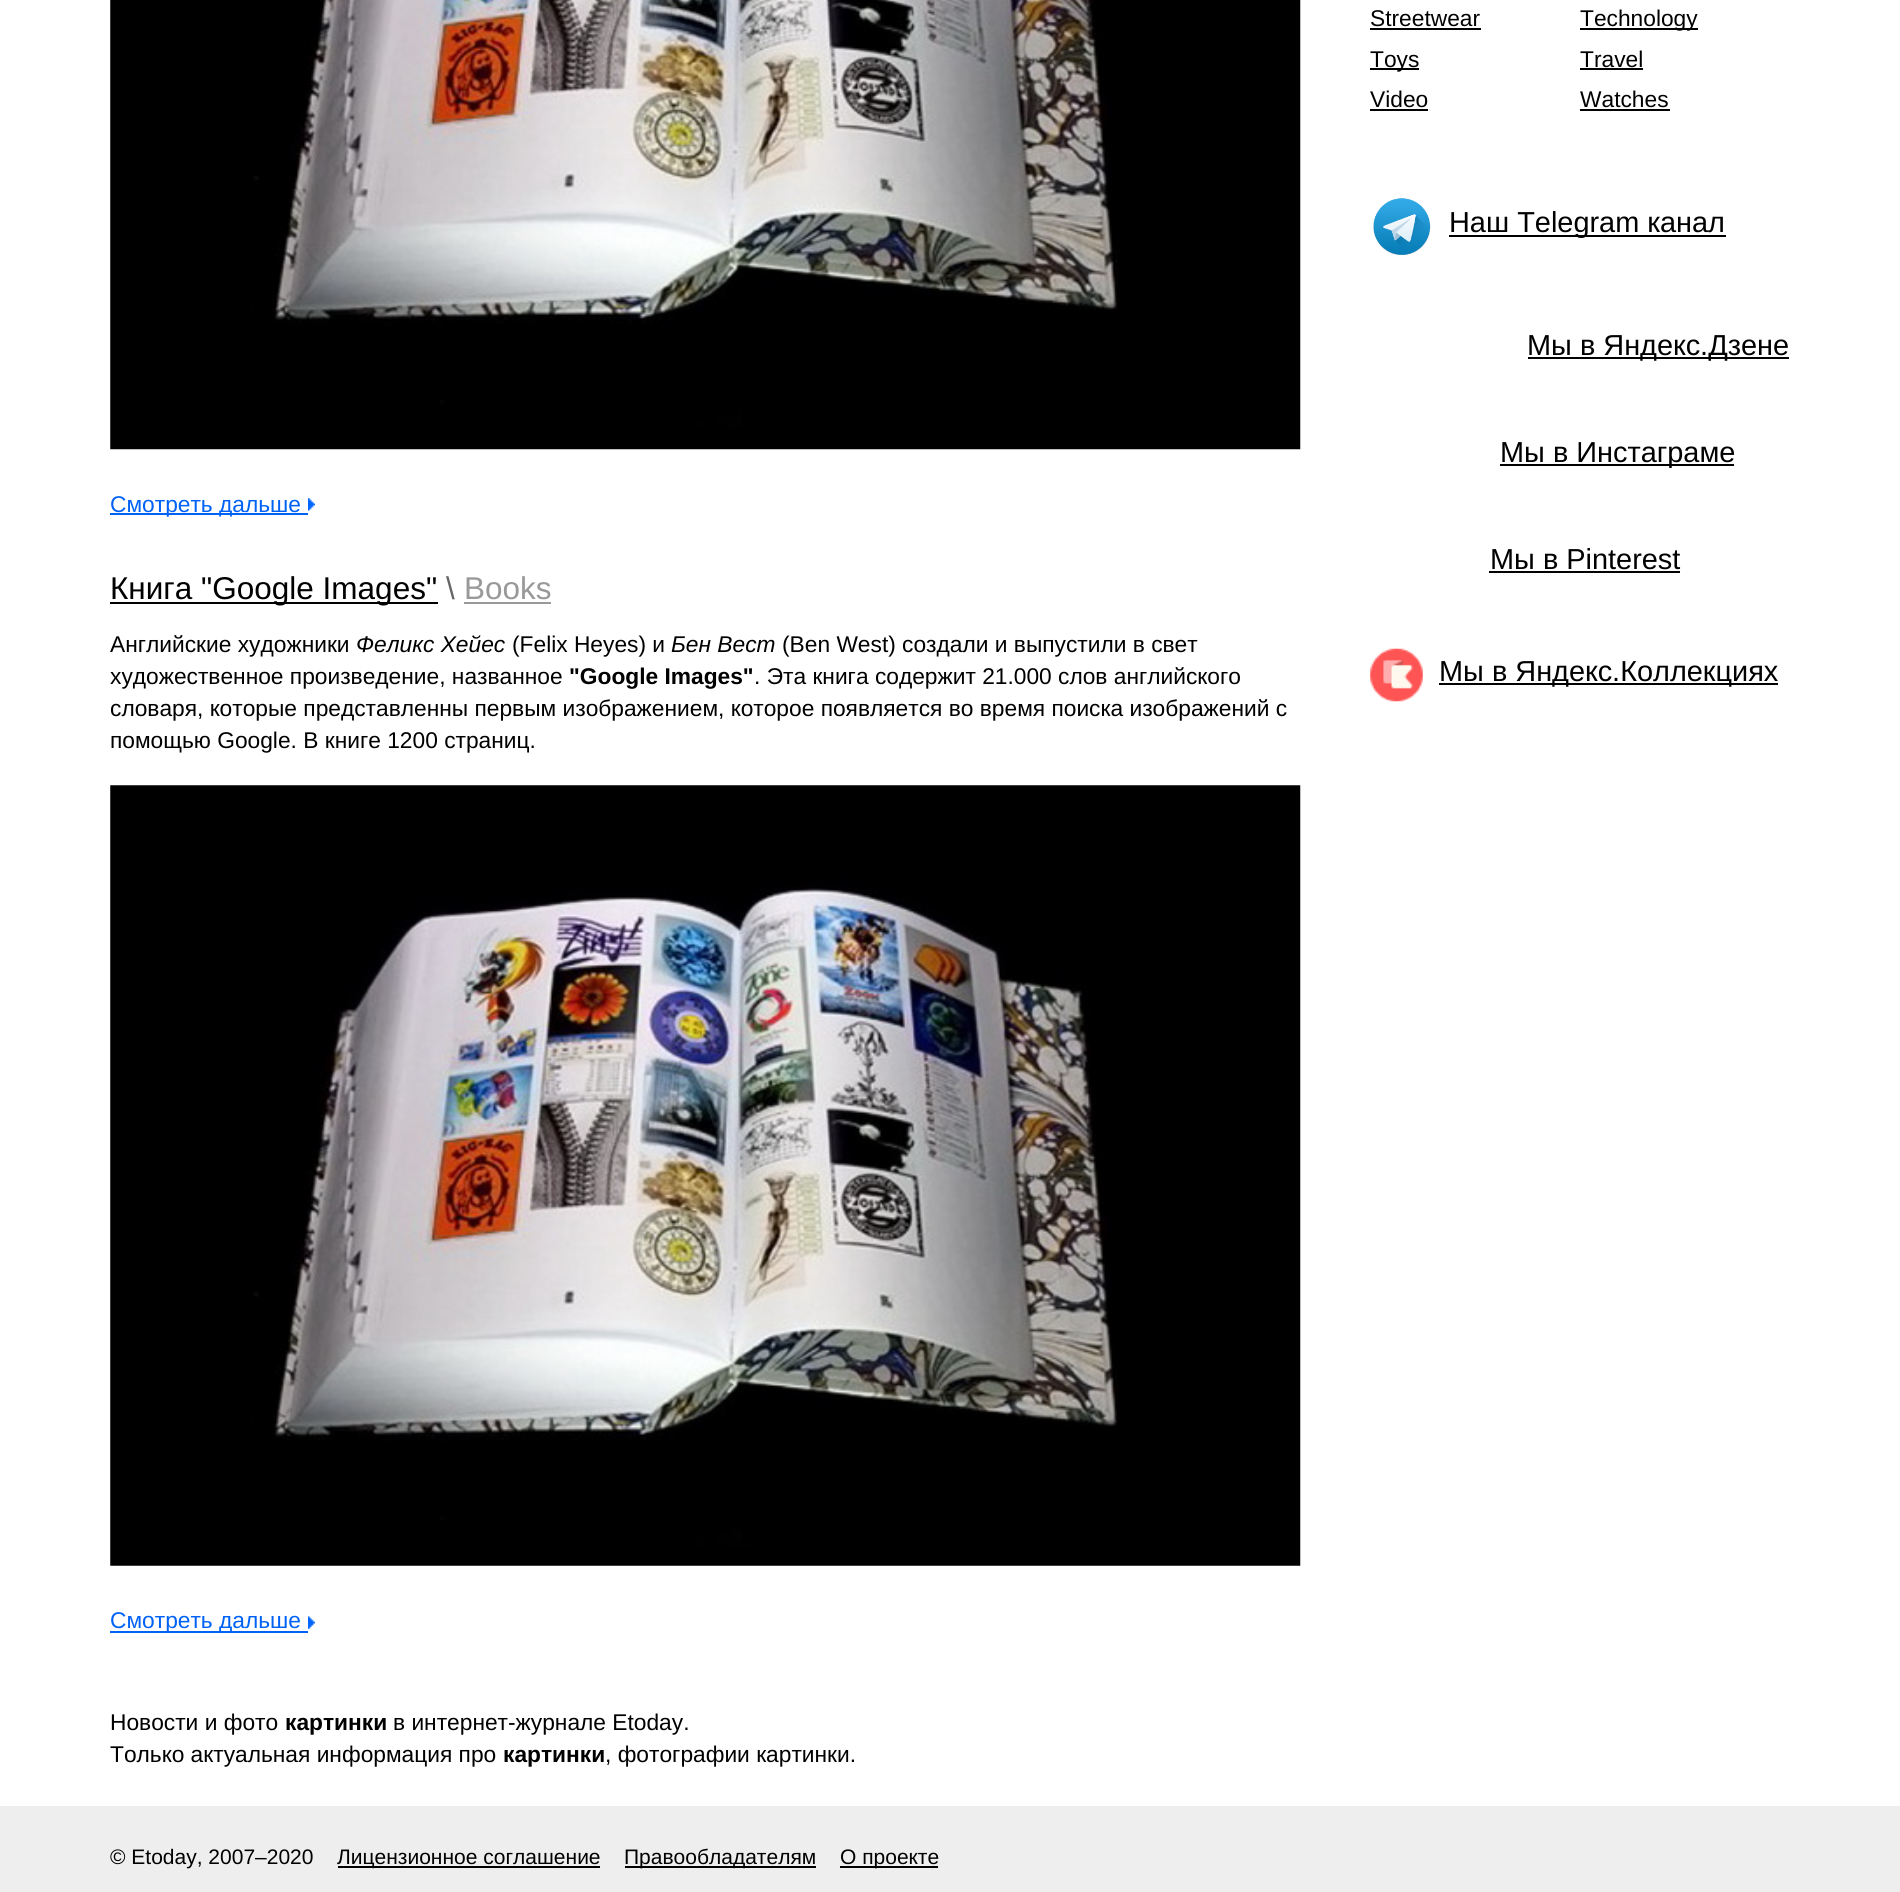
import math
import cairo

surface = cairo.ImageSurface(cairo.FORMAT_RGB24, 1900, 1892)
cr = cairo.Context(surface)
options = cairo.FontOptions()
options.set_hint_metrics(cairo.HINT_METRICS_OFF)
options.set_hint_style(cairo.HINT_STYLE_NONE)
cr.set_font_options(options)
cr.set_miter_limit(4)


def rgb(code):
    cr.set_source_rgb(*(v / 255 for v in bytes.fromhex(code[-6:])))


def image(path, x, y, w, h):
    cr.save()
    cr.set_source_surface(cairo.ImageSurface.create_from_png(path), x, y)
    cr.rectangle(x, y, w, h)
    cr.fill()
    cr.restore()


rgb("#ffffff")
cr.paint()
for x, y, w, h, color in [
    (1370, 28, 111, 2, "#000000"),
    (1580, 28, 118, 2, "#000000"),
    (1370, 68, 49, 2, "#000000"),
    (1580, 68, 63, 2, "#000000"),
    (1370, 109, 58, 2, "#000000"),
    (1580, 109, 90, 2, "#000000"),
]:
    rgb(color)
    cr.rectangle(x, y, w, h)
    cr.fill()
image("img/1.png", 1373, 198, 58, 58)
for x, y, w, h, color in [
    (1449, 235, 277, 2, "#000000"),
    (1528, 357, 261, 2, "#000000"),
    (1500, 464, 234, 2, "#000000"),
    (1489, 571, 191, 2, "#000000"),
]:
    rgb(color)
    cr.rectangle(x, y, w, h)
    cr.fill()
image("img/2.png", 1370, 648, 53, 54)
cr.rectangle(1439, 683, 339, 2)
cr.fill()
image("img/3.png", 110, 0, 1191, 450)
rgb("#0062f5")
cr.rectangle(110, 513, 198, 2)
cr.fill()
image("img/4.png", 308, 498, 7, 13)
rgb("#000000")
cr.rectangle(110, 602, 328, 2)
cr.fill()
rgb("#999999")
cr.rectangle(464, 602, 87, 2)
cr.fill()
image("img/5.png", 110, 785, 1191, 781)
rgb("#0062f5")
cr.rectangle(110, 1631, 198, 2)
cr.fill()
image("img/6.png", 308, 1616, 7, 13)
for x, y, w, h, color in [
    (0, 1806, 1900, 86, "#eeeeee"),
    (338, 1866, 262, 2, "#000000"),
    (625, 1866, 191, 2, "#000000"),
    (840, 1866, 98, 2, "#000000"),
]:
    rgb(color)
    cr.rectangle(x, y, w, h)
    cr.fill()
cr.select_font_face("Liberation Sans")
cr.set_font_size(22.75)
for x, y, s in [
    (1370, 26, "Streetwear"),
    (1580, 26, "Technology"),
    (1370, 67, "Toys"),
    (1580, 67, "Travel"),
    (1370, 107, "Video"),
    (1580, 107, "Watches"),
]:
    cr.move_to(x, y)
    cr.show_text(s)
cr.set_font_size(28.9)
for x, y, s in [
    (1449, 232, "Наш Telegram канал"),
    (1527, 355, "Мы в Яндекс.Дзене"),
    (1500, 462, "Мы в Инстаграме"),
    (1490, 569, "Мы в Pinterest"),
    (1439, 681, "Мы в Яндекс.Коллекциях"),
]:
    cr.move_to(x, y)
    cr.show_text(s)
cr.set_font_size(22.75)
rgb("#0062f5")
cr.move_to(110, 512)
cr.show_text("Смотреть дальше")
cr.set_font_size(31.5)
rgb("#000000")
cr.move_to(110, 599)
cr.show_text("Книга \"Google Images\"")
rgb("#666666")
cr.move_to(446, 599)
cr.show_text("\\")
rgb("#999999")
cr.move_to(464, 599)
cr.show_text("Books")
cr.set_font_size(22.75)
rgb("#000000")
cr.move_to(110, 652)
cr.show_text("Английские художники")
cr.select_font_face("Liberation Sans", cairo.FONT_SLANT_ITALIC)
cr.move_to(356, 652)
cr.show_text("Феликс Хейес")
cr.select_font_face("Liberation Sans")
cr.move_to(512, 652)
cr.show_text("(Felix Heyes) и")
cr.select_font_face("Liberation Sans", cairo.FONT_SLANT_ITALIC)
cr.move_to(671, 652)
cr.show_text("Бен Вест")
cr.select_font_face("Liberation Sans")
cr.move_to(782, 652)
cr.show_text("(Ben West) создали и выпустили в свет")
cr.move_to(110, 684)
cr.show_text("художественное произведение, названное")
cr.select_font_face("Liberation Sans", cairo.FONT_SLANT_NORMAL, cairo.FONT_WEIGHT_BOLD)
cr.move_to(569, 684)
cr.show_text("\"Google Images\"")
cr.select_font_face("Liberation Sans")
for x, y, s in [
    (754, 684, ". Эта книга содержит 21.000 слов английского"),
    (110, 716, "словаря, которые представленны первым изображением, которое появляется во время поиска изображений с"),
    (110, 748, "помощью Google. В книге 1200 страниц."),
]:
    cr.move_to(x, y)
    cr.show_text(s)
rgb("#0062f5")
cr.move_to(110, 1628)
cr.show_text("Смотреть дальше")
rgb("#000000")
cr.move_to(110, 1730)
cr.show_text("Новости и фото")
cr.select_font_face("Liberation Sans", cairo.FONT_SLANT_NORMAL, cairo.FONT_WEIGHT_BOLD)
cr.move_to(285, 1730)
cr.show_text("картинки")
cr.select_font_face("Liberation Sans")
cr.move_to(393, 1730)
cr.show_text("в интернет-журнале Etoday.")
cr.move_to(110, 1762)
cr.show_text("Только актуальная информация про")
cr.select_font_face("Liberation Sans", cairo.FONT_SLANT_NORMAL, cairo.FONT_WEIGHT_BOLD)
cr.move_to(503, 1762)
cr.show_text("картинки")
cr.select_font_face("Liberation Sans")
cr.move_to(605, 1762)
cr.show_text(", фотографии картинки.")
cr.set_font_size(21)
for x, y, s in [
    (110, 1864, "© Etoday, 2007–2020"),
    (337, 1864, "Лицензионное соглашение"),
    (624, 1864, "Правообладателям"),
    (840, 1864, "О проекте"),
]:
    cr.move_to(x, y)
    cr.show_text(s)
surface.write_to_png("page.png")
